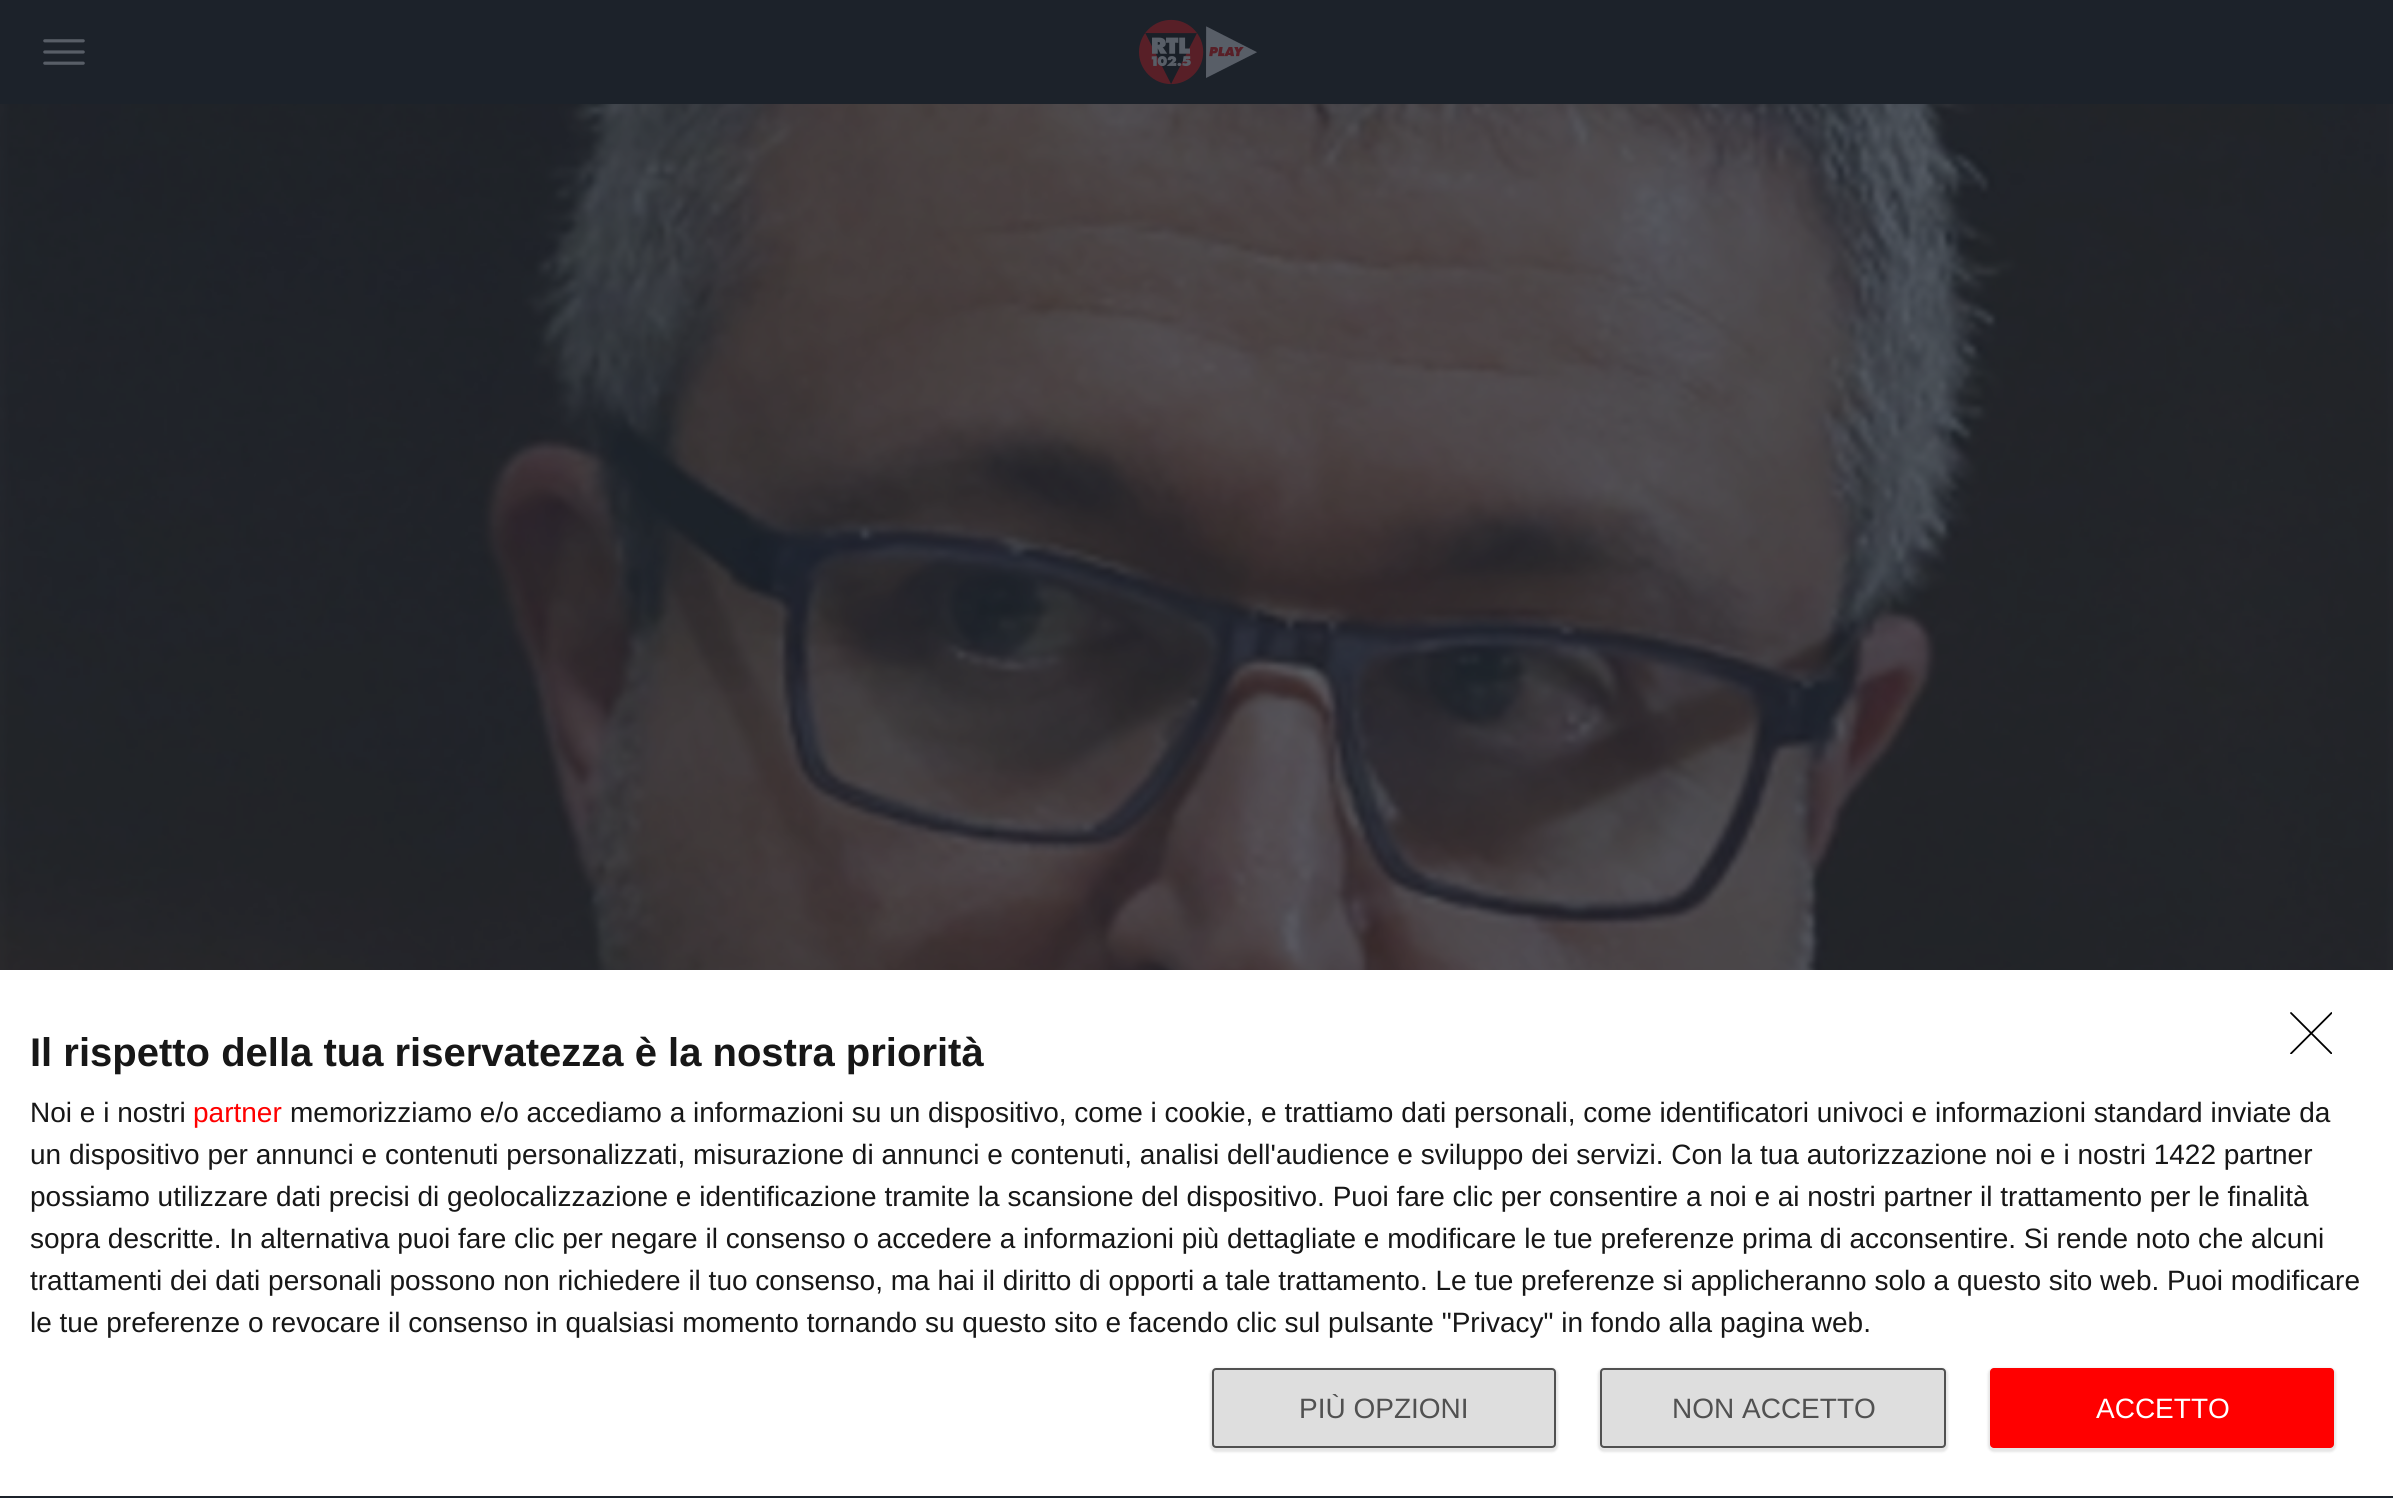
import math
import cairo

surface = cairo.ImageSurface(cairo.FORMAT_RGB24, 2393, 1498)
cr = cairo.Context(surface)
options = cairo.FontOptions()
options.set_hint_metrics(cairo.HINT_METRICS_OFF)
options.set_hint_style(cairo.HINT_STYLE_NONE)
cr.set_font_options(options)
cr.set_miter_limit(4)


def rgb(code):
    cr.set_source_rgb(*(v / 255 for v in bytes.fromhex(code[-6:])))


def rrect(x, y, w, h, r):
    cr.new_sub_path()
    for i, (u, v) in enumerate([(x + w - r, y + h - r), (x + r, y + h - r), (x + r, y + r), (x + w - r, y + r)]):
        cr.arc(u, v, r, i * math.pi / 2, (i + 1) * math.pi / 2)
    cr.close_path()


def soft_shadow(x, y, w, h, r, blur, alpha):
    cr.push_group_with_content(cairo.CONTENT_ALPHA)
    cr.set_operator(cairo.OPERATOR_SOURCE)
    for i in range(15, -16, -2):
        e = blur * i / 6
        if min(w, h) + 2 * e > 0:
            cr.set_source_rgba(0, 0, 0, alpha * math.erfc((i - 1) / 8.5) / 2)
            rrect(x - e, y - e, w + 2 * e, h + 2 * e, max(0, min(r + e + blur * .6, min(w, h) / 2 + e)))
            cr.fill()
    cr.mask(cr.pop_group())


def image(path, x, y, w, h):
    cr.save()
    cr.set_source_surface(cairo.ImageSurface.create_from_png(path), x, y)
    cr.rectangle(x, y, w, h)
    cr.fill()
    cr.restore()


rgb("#ffffff")
cr.paint()
gradient = cairo.LinearGradient(1197, 0, 1197, 1498)
gradient.add_color_stop_rgba(0, 0.169, 0.122, 0.153, 1)
gradient.add_color_stop_rgba(1, 0.11, 0.133, 0.165, 1)
cr.set_source(gradient)
cr.rectangle(0, 1496, 2393, 2)
cr.fill()
rgb("#1c222a")
cr.rectangle(0, 0, 2393, 104)
cr.fill()
image("img/1.png", 43, 39, 42, 26)
image("img/2.png", 1139, 19, 118, 66)
image("img/3.png", 0, 104, 2393, 866)
cr.save()
cr.rectangle(2290, 1012, 42, 42)
cr.clip()
cr.new_path()
cr.move_to(2291, 1013)
cr.line_to(2331.5, 1053.5)
cr.move_to(2331.5, 1013)
cr.line_to(2291, 1053.5)
rgb("#000000")
cr.set_line_width(1.8)
cr.set_line_cap(cairo.LINE_CAP_ROUND)
cr.set_line_join(cairo.LINE_JOIN_ROUND)
cr.stroke()
cr.restore()
rgb("#000000")
soft_shadow(1210, 1368, 348, 84, 6, 1, 0.1)
rgb("#dedede")
rrect(1213, 1369, 342, 78, 3)
cr.fill_preserve()
rgb("#515151")
cr.stroke()
rgb("#000000")
soft_shadow(1598, 1368, 350, 84, 6, 1, 0.1)
rgb("#dedede")
rrect(1601, 1369, 344, 78, 3)
cr.fill_preserve()
rgb("#515151")
cr.stroke()
rgb("#000000")
soft_shadow(1988, 1368, 348, 84, 6, 1, 0.1)
rgb("#ff0000")
rrect(1990, 1368, 344, 80, 4)
cr.fill()
cr.select_font_face("Liberation Sans", cairo.FONT_SLANT_NORMAL, cairo.FONT_WEIGHT_BOLD)
cr.set_font_size(40)
rgb("#171717")
cr.move_to(30, 1066)
cr.show_text("Il rispetto della tua riservatezza è la nostra priorità")
cr.select_font_face("Liberation Sans")
cr.set_font_size(28)
cr.move_to(30, 1122)
cr.show_text("Noi e i nostri")
rgb("#ff0000")
cr.move_to(193, 1122)
cr.show_text("partner")
rgb("#171717")
for x, y, s in [
    (290, 1122, "memorizziamo e/o accediamo a informazioni su un dispositivo, come i cookie, e trattiamo dati personali, come identificatori univoci e informazioni standard inviate da"),
    (30, 1164, "un dispositivo per annunci e contenuti personalizzati, misurazione di annunci e contenuti, analisi dell'audience e sviluppo dei servizi. Con la tua autorizzazione noi e i nostri 1422 partner"),
    (30, 1206, "possiamo utilizzare dati precisi di geolocalizzazione e identificazione tramite la scansione del dispositivo. Puoi fare clic per consentire a noi e ai nostri partner il trattamento per le finalità"),
    (30, 1248, "sopra descritte. In alternativa puoi fare clic per negare il consenso o accedere a informazioni più dettagliate e modificare le tue preferenze prima di acconsentire. Si rende noto che alcuni"),
    (30, 1290, "trattamenti dei dati personali possono non richiedere il tuo consenso, ma hai il diritto di opporti a tale trattamento. Le tue preferenze si applicheranno solo a questo sito web. Puoi modificare"),
    (30, 1332, "le tue preferenze o revocare il consenso in qualsiasi momento tornando su questo sito e facendo clic sul pulsante \"Privacy\" in fondo alla pagina web."),
]:
    cr.move_to(x, y)
    cr.show_text(s)
cr.save()
cr.rectangle(1300, 1394, 168, 28)
cr.clip()
rgb("#515151")
cr.move_to(1299, 1418)
cr.show_text("PIÙ OPZIONI")
cr.restore()
rgb("#515151")
cr.move_to(1672, 1418)
cr.show_text("NON ACCETTO")
rgb("#ffffff")
cr.move_to(2096, 1418)
cr.show_text("ACCETTO")
surface.write_to_png("page.png")
